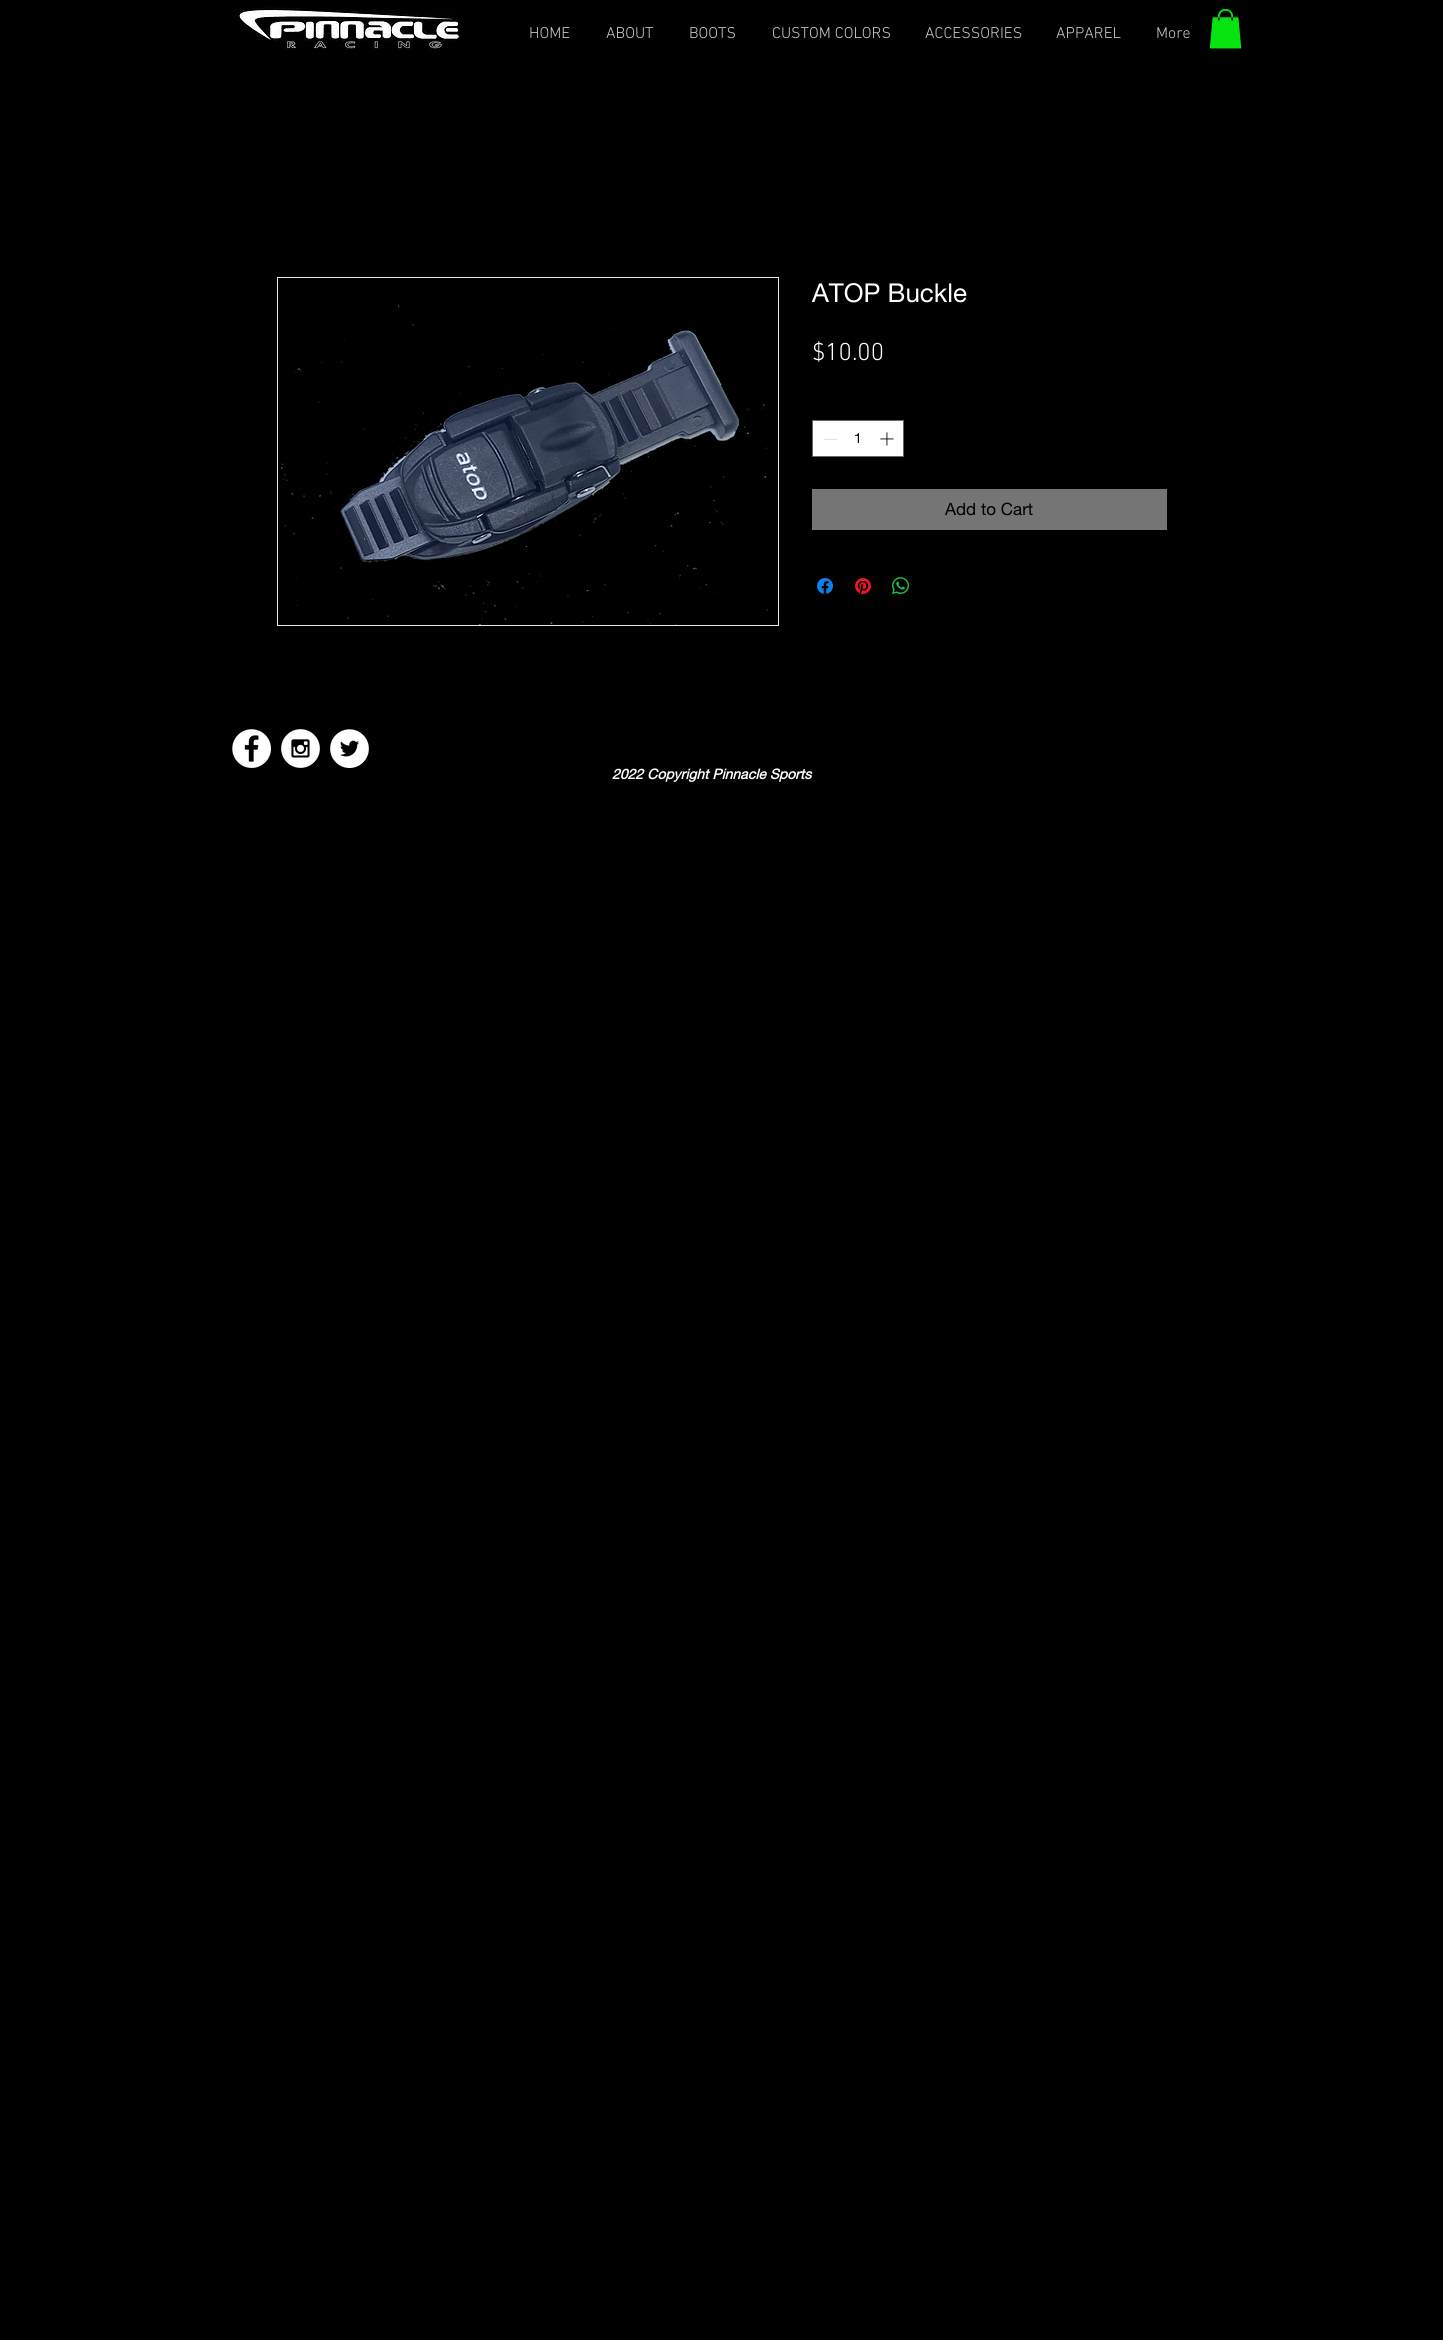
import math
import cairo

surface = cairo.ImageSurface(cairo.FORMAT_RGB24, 1443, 2340)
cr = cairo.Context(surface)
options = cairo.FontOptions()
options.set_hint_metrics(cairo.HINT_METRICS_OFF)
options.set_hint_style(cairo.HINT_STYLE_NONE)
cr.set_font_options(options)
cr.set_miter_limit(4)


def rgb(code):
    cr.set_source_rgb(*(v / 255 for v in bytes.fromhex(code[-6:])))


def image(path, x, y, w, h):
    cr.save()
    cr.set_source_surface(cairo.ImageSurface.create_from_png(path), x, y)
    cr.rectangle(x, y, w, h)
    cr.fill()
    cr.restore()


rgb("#000000")
cr.paint()
image("img/1.png", 236, 7, 224, 43)
image("img/2.png", 1209, 9, 33, 40)
cr.rectangle(277.5, 277.5, 501, 348)
rgb("#e8e6e6")
cr.set_line_width(1)
cr.stroke()
image("img/3.png", 280, 278, 498, 347)
rgb("#ffffff")
cr.rectangle(812.5, 420.5, 91, 36)
cr.fill_preserve()
rgb("#666666")
cr.stroke()
rgb("#e3e3e3")
cr.rectangle(824, 439, 13, 1)
cr.fill()
image("img/4.png", 880, 432, 14, 14)
rgb("#757575")
cr.rectangle(812, 489, 355, 41)
cr.fill()
image("img/5.png", 817, 578, 16, 16)
image("img/6.png", 855, 578, 16, 16)
image("img/7.png", 892, 577, 17, 17)
image("img/8.png", 232, 729, 39, 39)
image("img/9.png", 281, 729, 39, 39)
image("img/10.png", 330, 729, 39, 39)
cr.select_font_face("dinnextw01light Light")
cr.set_font_size(16)
rgb("#c7c7c7")
for x, y, s in [
    (529, 38, "HOME"),
    (606, 38, "ABOUT"),
    (689, 38, "BOOTS"),
    (772, 38, "CUSTOM COLORS"),
    (925, 38, "ACCESSORIES"),
    (1056, 38, "APPAREL"),
    (1156, 38, "More"),
]:
    cr.move_to(x, y)
    cr.show_text(s)
cr.select_font_face("helvetica neue")
cr.set_font_size(26)
rgb("#ffffff")
cr.move_to(812, 302)
cr.show_text("ATOP Buckle")
cr.select_font_face("dinnextw01light Light")
cr.set_font_size(25)
cr.move_to(812, 360)
cr.show_text("$10.00")
cr.select_font_face("helvetica neue")
cr.set_font_size(14)
rgb("#000000")
cr.move_to(854, 443)
cr.show_text("1")
cr.set_font_size(17)
cr.move_to(945, 515)
cr.show_text("Add to Cart")
cr.select_font_face("helvetica neue", cairo.FONT_SLANT_ITALIC, cairo.FONT_WEIGHT_BOLD)
cr.set_font_size(14)
rgb("#ffffff")
cr.move_to(612, 779)
cr.show_text("2022 Copyright Pinnacle Sports")
surface.write_to_png("page.png")
